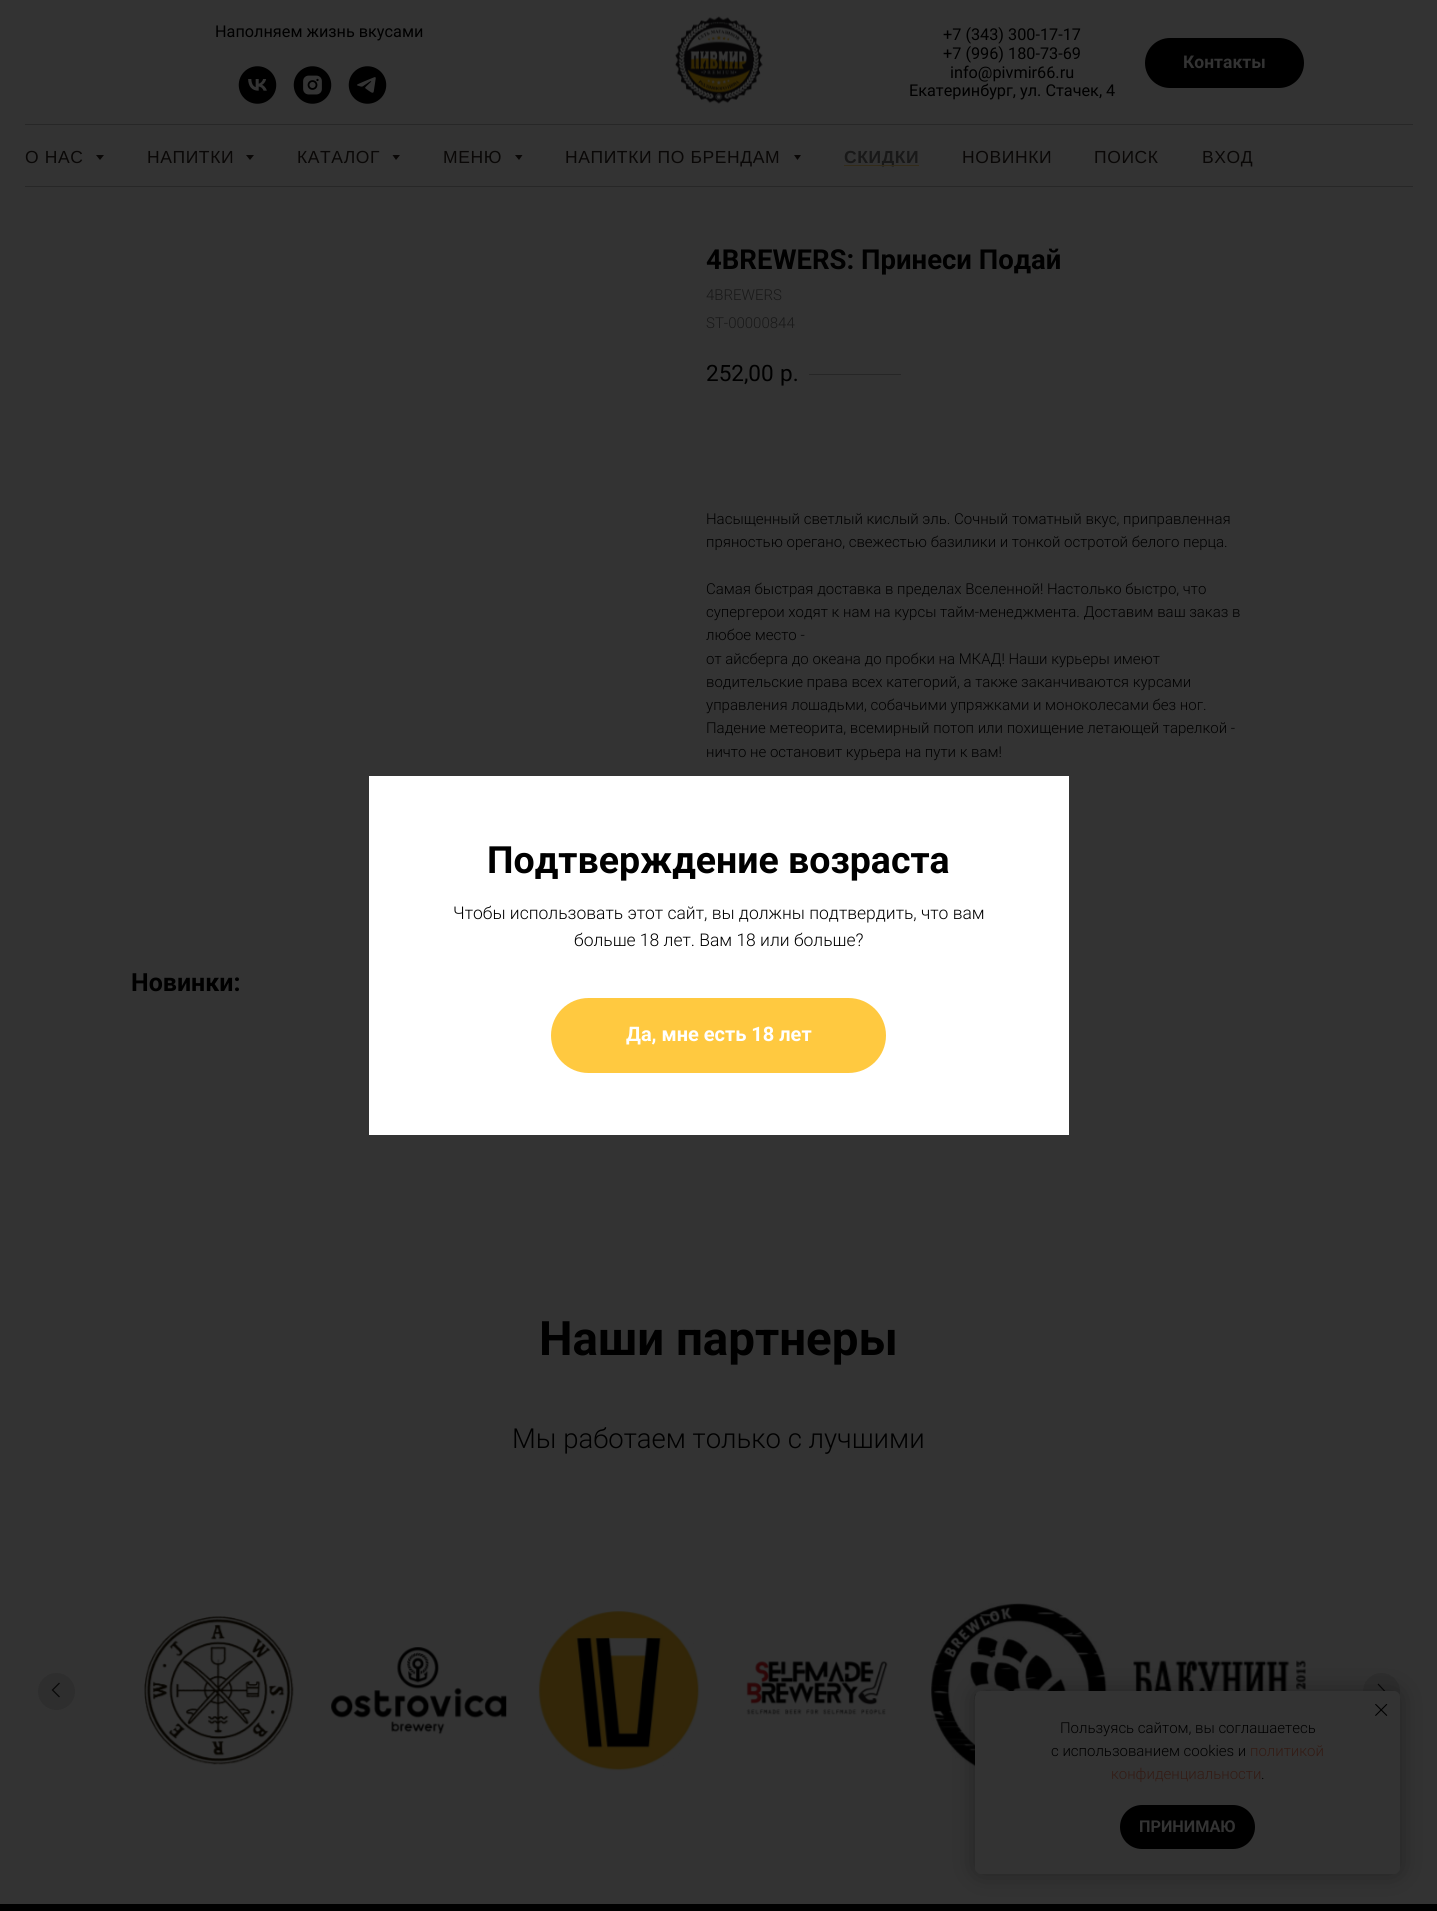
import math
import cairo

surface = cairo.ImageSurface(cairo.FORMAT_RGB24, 1437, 1911)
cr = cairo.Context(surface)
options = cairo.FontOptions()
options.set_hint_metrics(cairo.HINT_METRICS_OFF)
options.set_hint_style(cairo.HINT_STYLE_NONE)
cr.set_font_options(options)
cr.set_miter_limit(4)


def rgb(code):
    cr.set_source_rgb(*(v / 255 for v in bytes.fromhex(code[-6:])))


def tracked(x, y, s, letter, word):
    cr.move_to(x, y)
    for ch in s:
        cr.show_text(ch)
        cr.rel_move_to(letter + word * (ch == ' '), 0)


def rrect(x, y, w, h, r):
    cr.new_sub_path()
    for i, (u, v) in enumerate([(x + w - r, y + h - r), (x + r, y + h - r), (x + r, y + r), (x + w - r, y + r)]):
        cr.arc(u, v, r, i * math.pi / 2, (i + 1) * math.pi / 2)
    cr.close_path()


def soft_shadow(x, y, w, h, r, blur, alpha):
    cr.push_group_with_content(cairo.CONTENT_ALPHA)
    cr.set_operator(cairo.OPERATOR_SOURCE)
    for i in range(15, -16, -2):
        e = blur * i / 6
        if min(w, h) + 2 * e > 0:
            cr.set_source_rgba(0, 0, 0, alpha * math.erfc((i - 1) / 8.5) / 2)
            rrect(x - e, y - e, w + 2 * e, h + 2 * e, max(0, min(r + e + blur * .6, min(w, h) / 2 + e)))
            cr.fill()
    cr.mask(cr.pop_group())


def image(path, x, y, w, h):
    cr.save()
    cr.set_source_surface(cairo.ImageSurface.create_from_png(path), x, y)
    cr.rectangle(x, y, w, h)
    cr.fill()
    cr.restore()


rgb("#333333")
cr.paint()
image("img/1.png", 675, 16, 88, 88)
image("img/2.png", 238, 66, 39, 38)
image("img/3.png", 293, 66, 39, 38)
image("img/4.png", 348, 66, 39, 38)
rgb("#000000")
rrect(1145, 38, 159, 50, 25)
cr.fill()
rgb("#272727")
cr.rectangle(25, 124, 1388, 1)
cr.fill()
rgb("#090706")
cr.new_path()
cr.move_to(96, 155)
cr.line_to(104, 155)
cr.line_to(100, 160)
cr.close_path()
cr.fill()
cr.new_path()
cr.move_to(246, 155)
cr.line_to(254, 155)
cr.line_to(250, 160)
cr.close_path()
cr.fill()
cr.new_path()
cr.move_to(392.5, 155)
cr.line_to(400, 155)
cr.line_to(396, 160)
cr.close_path()
cr.fill()
cr.new_path()
cr.move_to(515, 155)
cr.line_to(522.5, 155)
cr.line_to(519, 160)
cr.close_path()
cr.fill()
cr.new_path()
cr.move_to(794, 155)
cr.line_to(801, 155)
cr.line_to(797.5, 160)
cr.close_path()
cr.fill()
for x, y, w, h, color in [
    (25, 186, 1388, 1, "#272727"),
    (809, 374, 92, 1, "#262626"),
    (369, 776, 700, 359, "#ffffff"),
]:
    rgb(color)
    cr.rectangle(x, y, w, h)
    cr.fill()
rgb("#ffc940")
rrect(551, 998, 335, 75, 37.5)
cr.fill()
image("img/5.png", 144, 1616, 150, 149)
image("img/6.png", 331, 1647, 176, 88)
image("img/7.png", 538, 1611, 162, 160)
image("img/8.png", 746, 1660, 142, 55)
image("img/9.png", 931, 1603, 176, 175)
image("img/10.png", 1133, 1660, 173, 31)
rgb("#2e2e2e")
cr.arc(56.5, 1691.5, 18.5, 0, 2 * math.pi)
cr.fill()
cr.new_path()
cr.move_to(59.5, 1697)
cr.line_to(52.5, 1690)
cr.line_to(59.5, 1683)
rgb("#070707")
cr.set_line_width(1.2)
cr.stroke()
rgb("#2e2e2e")
cr.arc(1381.5, 1691.5, 18.5, 0, 2 * math.pi)
cr.fill()
cr.new_path()
cr.move_to(1378, 1684)
cr.line_to(1385, 1691.5)
cr.line_to(1378, 1698.5)
rgb("#070707")
cr.stroke()
rgb("#000000")
cr.rectangle(0, 1904, 1437, 7)
cr.fill()
rgb("#000000")
soft_shadow(975, 1691, 425, 183, 6, 12.5, 0.3)
rgb("#333333")
rrect(975, 1691, 425, 183, 6)
cr.fill()
image("img/11.png", 1375, 1704, 13, 12)
rgb("#000000")
rrect(1120, 1805, 135, 44, 22)
cr.fill()
cr.select_font_face("Roboto")
cr.set_font_size(16.25)
for x, y, s in [
    (215, 37, "Наполняем жизнь вкусами"),
    (943, 40, "+7 (343) 300-17-17"),
    (943, 59, "+7 (996) 180-73-69"),
    (950, 78, "info@pivmir66.ru"),
    (909, 96, "Екатеринбург, ул. Стачек, 4"),
]:
    cr.move_to(x, y)
    cr.show_text(s)
cr.select_font_face("Roboto", cairo.FONT_SLANT_NORMAL, cairo.FONT_WEIGHT_BOLD)
cr.set_font_size(17.5)
rgb("#333333")
cr.move_to(1183, 68)
cr.show_text("Контакты")
cr.select_font_face("Liberation Sans")
rgb("#090706")
for x, y, s in [
    (25, 163, "О НАС"),
    (147, 163, "НАПИТКИ"),
    (297, 163, "КАТАЛОГ"),
    (443, 163, "МЕНЮ"),
    (565, 163, "НАПИТКИ ПО БРЕНДАМ"),
]:
    tracked(x, y, s, 0.6, 0)
cr.select_font_face("Liberation Sans", cairo.FONT_SLANT_NORMAL, cairo.FONT_WEIGHT_BOLD)
rgb("#181818")
tracked(844, 163, "СКИДКИ", 0.6, 0)
rgb("#332b18")
cr.rectangle(844, 165, 75, 1)
cr.fill()
cr.select_font_face("Liberation Sans")
rgb("#090706")
for x, y, s in [
    (962, 163, "НОВИНКИ"),
    (1094, 163, "ПОИСК"),
    (1202, 163, "ВХОД"),
]:
    tracked(x, y, s, 0.6, 0)
cr.select_font_face("Roboto", cairo.FONT_SLANT_NORMAL, cairo.FONT_WEIGHT_BOLD)
cr.set_font_size(27.5)
rgb("#000000")
cr.move_to(706, 269)
cr.show_text("4BREWERS: Принеси Подай")
cr.select_font_face("Roboto Light")
cr.set_font_size(15)
rgb("#181818")
cr.move_to(706, 300)
cr.show_text("4BREWERS")
cr.move_to(706, 328)
cr.show_text("ST-00000844")
cr.select_font_face("Roboto")
cr.set_font_size(22.5)
rgb("#000000")
cr.move_to(706, 381)
cr.show_text("252,00")
cr.move_to(780, 381)
cr.show_text("р.")
cr.select_font_face("Roboto Light")
cr.set_font_size(15)
for x, y, s in [
    (706, 524, "Насыщенный светлый кислый эль. Сочный томатный вкус, приправленная"),
    (706, 547, "пряностью орегано, свежестью базилики и тонкой остротой белого перца."),
    (706, 594, "Самая быстрая доставка в пределах Вселенной! Настолько быстро, что"),
    (706, 617, "супергерои ходят к нам на курсы тайм-менеджмента. Доставим ваш заказ в"),
    (706, 640, "любое место -"),
    (706, 664, "от айсберга до океана до пробки на МКАД! Наши курьеры имеют"),
    (706, 687, "водительские права всех категорий, а также заканчиваются курсами"),
    (706, 710, "управления лошадьми, собачьими упряжками и моноколесами без ног."),
    (706, 733, "Падение метеорита, всемирный потоп или похищение летающей тарелкой -"),
    (706, 757, "ничто не остановит курьера на пути к вам!"),
]:
    cr.move_to(x, y)
    cr.show_text(s)
cr.select_font_face("Roboto", cairo.FONT_SLANT_NORMAL, cairo.FONT_WEIGHT_BOLD)
cr.set_font_size(25)
cr.move_to(131, 991)
cr.show_text("Новинки:")
cr.set_font_size(37.5)
cr.move_to(487, 873)
cr.show_text("Подтверждение возраста")
cr.select_font_face("Roboto Light")
cr.set_font_size(17.5)
cr.move_to(453, 919)
cr.show_text("Чтобы использовать этот сайт, вы должны подтвердить, что вам")
cr.move_to(574, 946)
cr.show_text("больше 18 лет. Вам 18 или больше?")
cr.save()
cr.rectangle(626, 1021, 185, 28)
cr.clip()
cr.select_font_face("Roboto", cairo.FONT_SLANT_NORMAL, cairo.FONT_WEIGHT_BOLD)
cr.set_font_size(20)
rgb("#ffffff")
cr.move_to(626, 1041)
cr.show_text("Да, мне есть 18 лет")
cr.restore()
cr.select_font_face("Roboto", cairo.FONT_SLANT_NORMAL, cairo.FONT_WEIGHT_BOLD)
cr.set_font_size(47.5)
cr.move_to(539, 1355)
cr.show_text("Наши партнеры")
cr.select_font_face("Roboto Light")
cr.set_font_size(27.5)
cr.move_to(512, 1448)
cr.show_text("Мы работаем только с лучшими")
cr.set_font_size(15)
cr.move_to(1060, 1733)
cr.show_text("Пользуясь сайтом, вы соглашаетесь")
cr.move_to(1051, 1756)
cr.show_text("с использованием cookies и")
rgb("#331b14")
cr.move_to(1250, 1756)
cr.show_text("политикой")
cr.move_to(1111, 1779)
cr.show_text("конфиденциальности")
rgb("#000000")
cr.move_to(1261, 1779)
cr.show_text(".")
cr.select_font_face("Roboto", cairo.FONT_SLANT_NORMAL, cairo.FONT_WEIGHT_BOLD)
cr.set_font_size(16.25)
rgb("#333333")
cr.move_to(1139, 1832)
cr.show_text("ПРИНИМАЮ")
surface.write_to_png("page.png")
